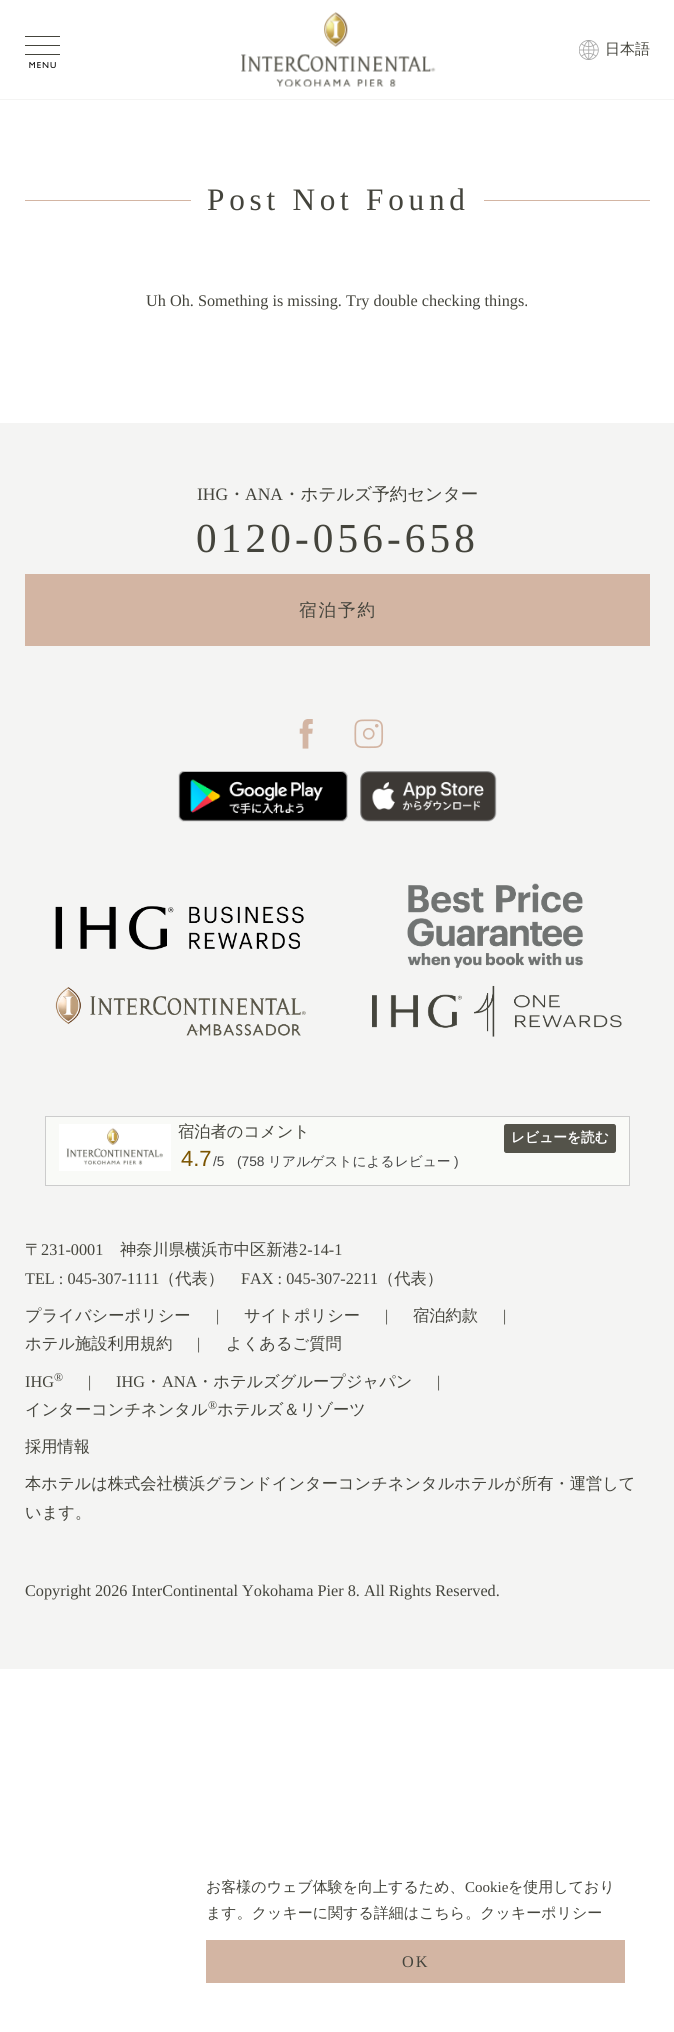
import math
import cairo

surface = cairo.ImageSurface(cairo.FORMAT_RGB24, 674, 2032)
cr = cairo.Context(surface)
options = cairo.FontOptions()
options.set_hint_metrics(cairo.HINT_METRICS_OFF)
options.set_hint_style(cairo.HINT_STYLE_NONE)
cr.set_font_options(options)
cr.set_miter_limit(4)


def rgb(code):
    cr.set_source_rgb(*(v / 255 for v in bytes.fromhex(code[-6:])))


def tracked(x, y, s, letter, word):
    cr.move_to(x, y)
    for ch in s:
        cr.show_text(ch)
        cr.rel_move_to(letter + word * (ch == ' '), 0)


def rrect(x, y, w, h, r):
    cr.new_sub_path()
    for i, (u, v) in enumerate([(x + w - r, y + h - r), (x + r, y + h - r), (x + r, y + r), (x + w - r, y + r)]):
        cr.arc(u, v, r, i * math.pi / 2, (i + 1) * math.pi / 2)
    cr.close_path()


def image(path, x, y, w, h):
    cr.save()
    cr.set_source_surface(cairo.ImageSurface.create_from_png(path), x, y)
    cr.rectangle(x, y, w, h)
    cr.fill()
    cr.restore()


rgb("#ffffff")
cr.paint()
rgb("#f4f4f3")
cr.rectangle(0, 99, 674, 1)
cr.fill()
image("img/1.png", 241, 12, 195, 75)
for x, y, w, h, color in [
    (25, 36, 35, 1, "#44443c"),
    (25, 45, 35, 1, "#44443c"),
    (25, 54, 35, 1, "#44443c"),
]:
    rgb(color)
    cr.rectangle(x, y, w, h)
    cr.fill()
image("img/2.png", 29, 62, 27, 7)
image("img/3.png", 579, 40, 20, 20)
for x, y, w, h, color in [
    (25, 200, 625, 1, "#d3b5a3"),
    (191, 200, 293, 1, "#ffffff"),
    (0, 423, 674, 1246, "#f4f4f3"),
    (25, 574, 625, 72, "#d3b5a3"),
]:
    rgb(color)
    cr.rectangle(x, y, w, h)
    cr.fill()
image("img/4.png", 299, 719, 14, 30)
image("img/5.png", 354, 719, 30, 30)
image("img/6.png", 178, 771, 170, 51)
image("img/7.png", 360, 771, 137, 51)
image("img/8.png", 55, 906, 249, 44)
image("img/9.png", 407, 883, 176, 85)
image("img/10.png", 55, 987, 251, 49)
image("img/11.png", 372, 985, 250, 52)
rgb("#f9faf7")
cr.rectangle(45.5, 1116.5, 584, 69)
cr.fill_preserve()
rgb("#cccccc")
cr.set_line_width(1)
cr.stroke()
image("img/12.png", 59, 1124, 112, 47)
rgb("#54534a")
rrect(504.5, 1124.5, 111, 28, 2)
cr.fill_preserve()
cr.stroke()
rgb("#d3b5a3")
cr.rectangle(206, 1940, 419, 43)
cr.fill()
cr.select_font_face("WenQuanYi Zen Hei Medium")
cr.set_font_size(15)
rgb("#44443c")
cr.move_to(605, 54)
cr.show_text("日本語")
cr.select_font_face("Liberation Serif")
cr.set_font_size(31.25)
tracked(207, 210, "Post Not Found", 4.75, 0)
cr.set_font_size(16.25)
cr.move_to(146, 306)
cr.show_text("Uh Oh. Something is missing. Try double checking things.")
cr.set_font_size(17.5)
cr.move_to(197, 500)
cr.show_text("IHG")
cr.select_font_face("WenQuanYi Zen Hei Medium")
cr.move_to(228, 500)
cr.show_text("・")
cr.select_font_face("Liberation Serif")
cr.move_to(245, 500)
cr.show_text("ANA")
cr.select_font_face("WenQuanYi Zen Hei Medium")
cr.move_to(283, 500)
cr.show_text("・ホテルズ予約センター")
cr.select_font_face("Liberation Serif")
cr.set_font_size(41.25)
tracked(196, 552, "0120-056-658", 4.1, 0)
cr.select_font_face("WenQuanYi Zen Hei Medium")
cr.set_font_size(17.5)
tracked(299, 616, "宿泊予約", 2, 0)
cr.set_font_size(16.25)
cr.move_to(178, 1137)
cr.show_text("宿泊者のコメント")
cr.select_font_face("Liberation Sans")
cr.set_font_size(22)
rgb("#7b5400")
cr.move_to(181, 1166)
cr.show_text("4.7")
cr.set_font_size(13.75)
rgb("#444444")
cr.move_to(213, 1166)
cr.show_text("/5")
cr.move_to(237, 1166)
cr.show_text("(758")
cr.select_font_face("WenQuanYi Zen Hei Medium")
cr.move_to(268, 1166)
cr.show_text("リアルゲストによるレビュー")
cr.select_font_face("Liberation Sans")
cr.move_to(454, 1166)
cr.show_text(")")
cr.select_font_face("WenQuanYi Zen Hei", cairo.FONT_SLANT_NORMAL, cairo.FONT_WEIGHT_BOLD)
rgb("#ffffff")
cr.move_to(511, 1142)
cr.show_text("レビューを読む")
cr.select_font_face("WenQuanYi Zen Hei Medium")
cr.set_font_size(16.25)
rgb("#44443c")
cr.move_to(25, 1255)
cr.show_text("〒")
cr.select_font_face("Liberation Serif")
cr.move_to(41, 1255)
cr.show_text("231-0001")
cr.select_font_face("WenQuanYi Zen Hei Medium")
cr.move_to(120, 1255)
cr.show_text("神奈川県横浜市中区新港")
cr.select_font_face("Liberation Serif")
cr.move_to(299, 1255)
cr.show_text("2-14-1")
cr.move_to(25, 1284)
cr.show_text("TEL : 045-307-1111")
cr.select_font_face("WenQuanYi Zen Hei Medium")
cr.move_to(159, 1284)
cr.show_text("（代表）")
cr.select_font_face("Liberation Serif")
cr.move_to(241, 1284)
cr.show_text("FAX : 045-307-2211")
cr.select_font_face("WenQuanYi Zen Hei Medium")
cr.move_to(378, 1284)
cr.show_text("（代表）")
cr.move_to(25, 1321)
cr.show_text("プライバシーポリシー")
cr.select_font_face("Liberation Serif")
cr.move_to(216, 1321)
cr.show_text("|")
cr.select_font_face("WenQuanYi Zen Hei Medium")
cr.move_to(244, 1321)
cr.show_text("サイトポリシー")
cr.select_font_face("Liberation Serif")
cr.move_to(385, 1321)
cr.show_text("|")
cr.select_font_face("WenQuanYi Zen Hei Medium")
cr.move_to(413, 1321)
cr.show_text("宿泊約款")
cr.select_font_face("Liberation Serif")
cr.move_to(503, 1321)
cr.show_text("|")
cr.select_font_face("WenQuanYi Zen Hei Medium")
cr.move_to(25, 1349)
cr.show_text("ホテル施設利用規約")
cr.select_font_face("Liberation Serif")
cr.move_to(197, 1349)
cr.show_text("|")
cr.select_font_face("WenQuanYi Zen Hei Medium")
cr.move_to(226, 1349)
cr.show_text("よくあるご質問")
cr.select_font_face("Liberation Serif")
cr.move_to(25, 1387)
cr.show_text("IHG")
cr.set_font_size(12)
cr.move_to(54, 1381)
cr.show_text("®")
cr.set_font_size(16.25)
cr.move_to(88, 1387)
cr.show_text("|")
cr.move_to(116, 1387)
cr.show_text("IHG")
cr.select_font_face("WenQuanYi Zen Hei Medium")
cr.move_to(145, 1387)
cr.show_text("・")
cr.select_font_face("Liberation Serif")
cr.move_to(162, 1387)
cr.show_text("ANA")
cr.select_font_face("WenQuanYi Zen Hei Medium")
cr.move_to(197, 1387)
cr.show_text("・ホテルズグループジャパン")
cr.select_font_face("Liberation Serif")
cr.move_to(437, 1387)
cr.show_text("|")
cr.select_font_face("WenQuanYi Zen Hei Medium")
cr.move_to(25, 1415)
cr.show_text("インターコンチネンタル")
cr.select_font_face("Liberation Serif")
cr.set_font_size(12)
cr.move_to(208, 1409)
cr.show_text("®")
cr.select_font_face("WenQuanYi Zen Hei Medium")
cr.set_font_size(16.25)
for x, y, s in [
    (217, 1415, "ホテルズ＆リゾーツ"),
    (25, 1452, "採用情報"),
    (25, 1489, "本ホテルは株式会社横浜グランドインターコンチネンタルホテルが所有・運営して"),
    (25, 1518, "います。"),
]:
    cr.move_to(x, y)
    cr.show_text(s)
cr.select_font_face("Liberation Serif")
cr.move_to(25, 1596)
cr.show_text("Copyright 2026 InterContinental Yokohama Pier 8. All Rights Reserved.")
cr.select_font_face("WenQuanYi Zen Hei Medium")
cr.set_font_size(15)
cr.move_to(206, 1892)
cr.show_text("お客様のウェブ体験を向上するため、")
cr.select_font_face("Liberation Serif")
cr.move_to(465, 1892)
cr.show_text("Cookie")
cr.select_font_face("WenQuanYi Zen Hei Medium")
cr.move_to(508, 1892)
cr.show_text("を使用しており")
cr.move_to(206, 1918)
cr.show_text("ます。クッキーに関する詳細はこちら。クッキーポリシー")
cr.select_font_face("Liberation Serif")
cr.set_font_size(16.25)
tracked(402, 1967, "OK", 2, 0)
surface.write_to_png("page.png")
